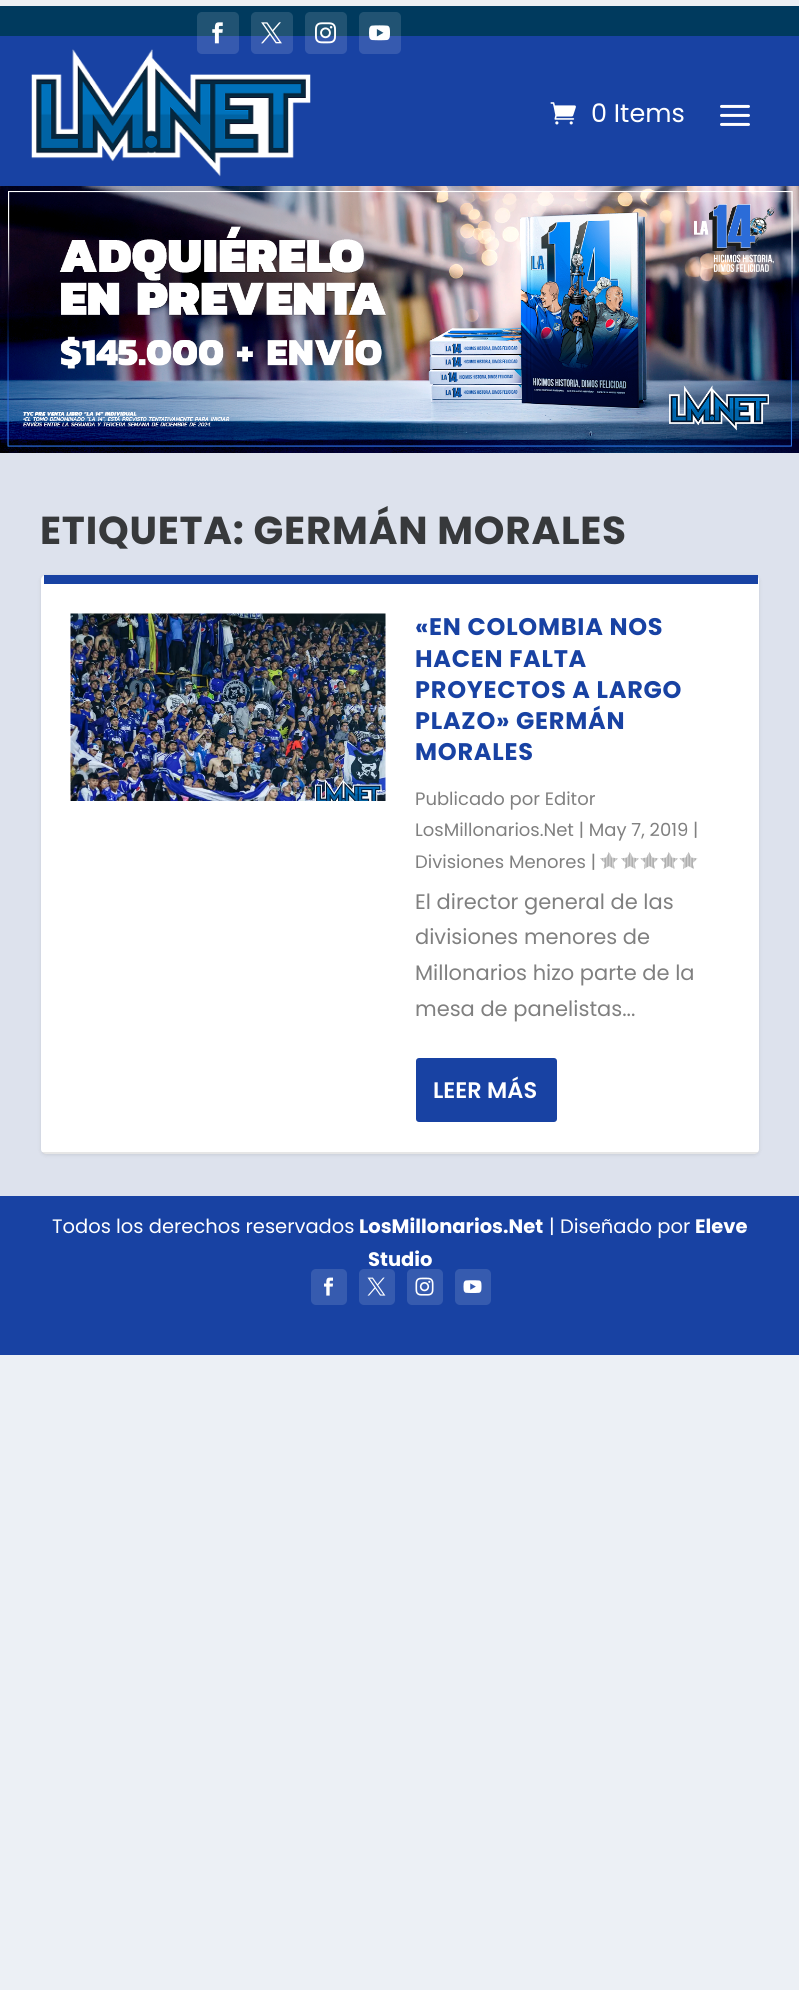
import math
import cairo

surface = cairo.ImageSurface(cairo.FORMAT_RGB24, 799, 1990)
cr = cairo.Context(surface)
options = cairo.FontOptions()
options.set_hint_metrics(cairo.HINT_METRICS_OFF)
options.set_hint_style(cairo.HINT_STYLE_NONE)
cr.set_font_options(options)
cr.set_miter_limit(4)


def rgb(code):
    cr.set_source_rgb(*(v / 255 for v in bytes.fromhex(code[-6:])))


def tracked(x, y, s, letter, word):
    cr.move_to(x, y)
    for ch in s:
        cr.show_text(ch)
        cr.rel_move_to(letter + word * (ch == ' '), 0)


def rrect(x, y, w, h, r):
    cr.new_sub_path()
    for i, (u, v) in enumerate([(x + w - r, y + h - r), (x + r, y + h - r), (x + r, y + r), (x + w - r, y + r)]):
        cr.arc(u, v, r, i * math.pi / 2, (i + 1) * math.pi / 2)
    cr.close_path()


def soft_shadow(x, y, w, h, r, blur, alpha):
    cr.push_group_with_content(cairo.CONTENT_ALPHA)
    cr.set_operator(cairo.OPERATOR_SOURCE)
    for i in range(15, -16, -2):
        e = blur * i / 6
        if min(w, h) + 2 * e > 0:
            cr.set_source_rgba(0, 0, 0, alpha * math.erfc((i - 1) / 8.5) / 2)
            rrect(x - e, y - e, w + 2 * e, h + 2 * e, max(0, min(r + e + blur * .6, min(w, h) / 2 + e)))
            cr.fill()
    cr.mask(cr.pop_group())


def image(path, x, y, w, h):
    cr.save()
    cr.set_source_surface(cairo.ImageSurface.create_from_png(path), x, y)
    cr.rectangle(x, y, w, h)
    cr.fill()
    cr.restore()


rgb("#ecf0f5")
cr.paint()
for x, y, w, h, color in [
    (0, 453, 799, 743, "#dde2ed"),
    (0, 6, 799, 30, "#003a5e"),
    (0, 36, 799, 150, "#1842a3"),
]:
    rgb(color)
    cr.rectangle(x, y, w, h)
    cr.fill()
cr.set_source_rgba(1, 1, 1, 0.13)
rrect(197, 12, 42, 42, 5)
cr.fill()
image("img/1.png", 212, 22, 11, 22)
rrect(251, 12, 42, 42, 5)
cr.fill()
image("img/2.png", 261, 22, 21, 22)
rrect(305, 12, 42, 42, 5)
cr.fill()
image("img/3.png", 315, 22, 21, 22)
rrect(359, 12, 42, 42, 5)
cr.fill()
image("img/4.png", 369, 25, 21, 16)
image("img/5.png", 31, 49, 280, 128)
image("img/6.png", 550, 102, 26, 23)
image("img/7.png", 720, 104, 30, 22)
image("img/8.png", 0, 186, 799, 267)
rgb("#000000")
soft_shadow(41, 576, 718, 579, 5, 2, 0.1)
rgb("#ffffff")
rrect(41, 575, 718, 579, 5)
cr.fill()
rgb("#1842a3")
cr.rectangle(44, 575, 714, 9)
cr.fill()
cr.set_source_rgba(0, 0, 0, 0.1)
cr.new_path()
cr.move_to(758, 1152)
cr.curve_to(757, 1153, 756, 1154, 754, 1154)
cr.line_to(45, 1154)
cr.curve_to(44, 1154, 42, 1153, 42, 1152)
cr.close_path()
cr.fill()
image("img/9.png", 70, 613, 316, 188)
image("img/10.png", 600, 852, 18, 17)
image("img/10.png", 621, 852, 18, 17)
image("img/11.png", 640, 852, 19, 17)
image("img/10.png", 660, 852, 18, 17)
image("img/11.png", 679, 852, 19, 17)
rgb("#1842a3")
rrect(416, 1058, 141, 64, 3)
cr.fill()
cr.rectangle(0, 1196, 799, 159)
cr.fill()
rgb("#365baf")
rrect(311, 1269, 36, 36, 5)
cr.fill()
image("img/12.png", 324, 1277, 9, 19)
rrect(359, 1269, 36, 36, 5)
cr.fill()
image("img/13.png", 367, 1277, 19, 19)
rrect(407, 1269, 36, 36, 5)
cr.fill()
image("img/14.png", 415, 1277, 19, 19)
rrect(455, 1269, 36, 36, 5)
cr.fill()
image("img/15.png", 463, 1280, 19, 13)
cr.select_font_face("Poppins")
cr.set_font_size(25.5)
rgb("#ffffff")
cr.move_to(591, 122)
cr.show_text("0 Items")
cr.select_font_face("Poppins", cairo.FONT_SLANT_NORMAL, cairo.FONT_WEIGHT_BOLD)
cr.set_font_size(39)
rgb("#37393b")
tracked(40, 544, "ETIQUETA: GERMÁN MORALES", 0.75, 0)
cr.set_font_size(24)
rgb("#1842a3")
for x, y, s in [
    (415, 635, "«EN COLOMBIA NOS"),
    (415, 667, "HACEN FALTA"),
    (415, 698, "PROYECTOS A LARGO"),
    (415, 729, "PLAZO» GERMÁN"),
    (415, 760, "MORALES"),
]:
    tracked(x, y, s, 0.75, 0)
cr.select_font_face("Poppins")
cr.set_font_size(18)
rgb("#808080")
for x, y, s in [
    (415, 805, "Publicado por Editor"),
    (415, 836, "LosMillonarios.Net | May 7, 2019 |"),
    (415, 868, "Divisiones Menores |"),
]:
    cr.move_to(x, y)
    cr.show_text(s)
cr.set_font_size(21)
for x, y, s in [
    (415, 909, "El director general de las"),
    (415, 944, "divisiones menores de"),
    (415, 980, "Millonarios hizo parte de la"),
    (415, 1016, "mesa de panelistas..."),
]:
    cr.move_to(x, y)
    cr.show_text(s)
cr.select_font_face("Poppins SemiBold")
cr.set_font_size(22.5)
rgb("#ffffff")
cr.move_to(433, 1098)
cr.show_text("LEER MÁS")
cr.select_font_face("Poppins")
cr.set_font_size(19.5)
cr.move_to(52, 1233)
cr.show_text("Todos los derechos reservados")
cr.select_font_face("Poppins", cairo.FONT_SLANT_NORMAL, cairo.FONT_WEIGHT_BOLD)
cr.move_to(359, 1233)
cr.show_text("LosMillonarios.Net")
cr.select_font_face("Poppins")
cr.move_to(549, 1233)
cr.show_text("| Diseñado por")
cr.select_font_face("Poppins", cairo.FONT_SLANT_NORMAL, cairo.FONT_WEIGHT_BOLD)
cr.move_to(695, 1233)
cr.show_text("Eleve")
cr.move_to(368, 1266)
cr.show_text("Studio")
surface.write_to_png("page.png")
